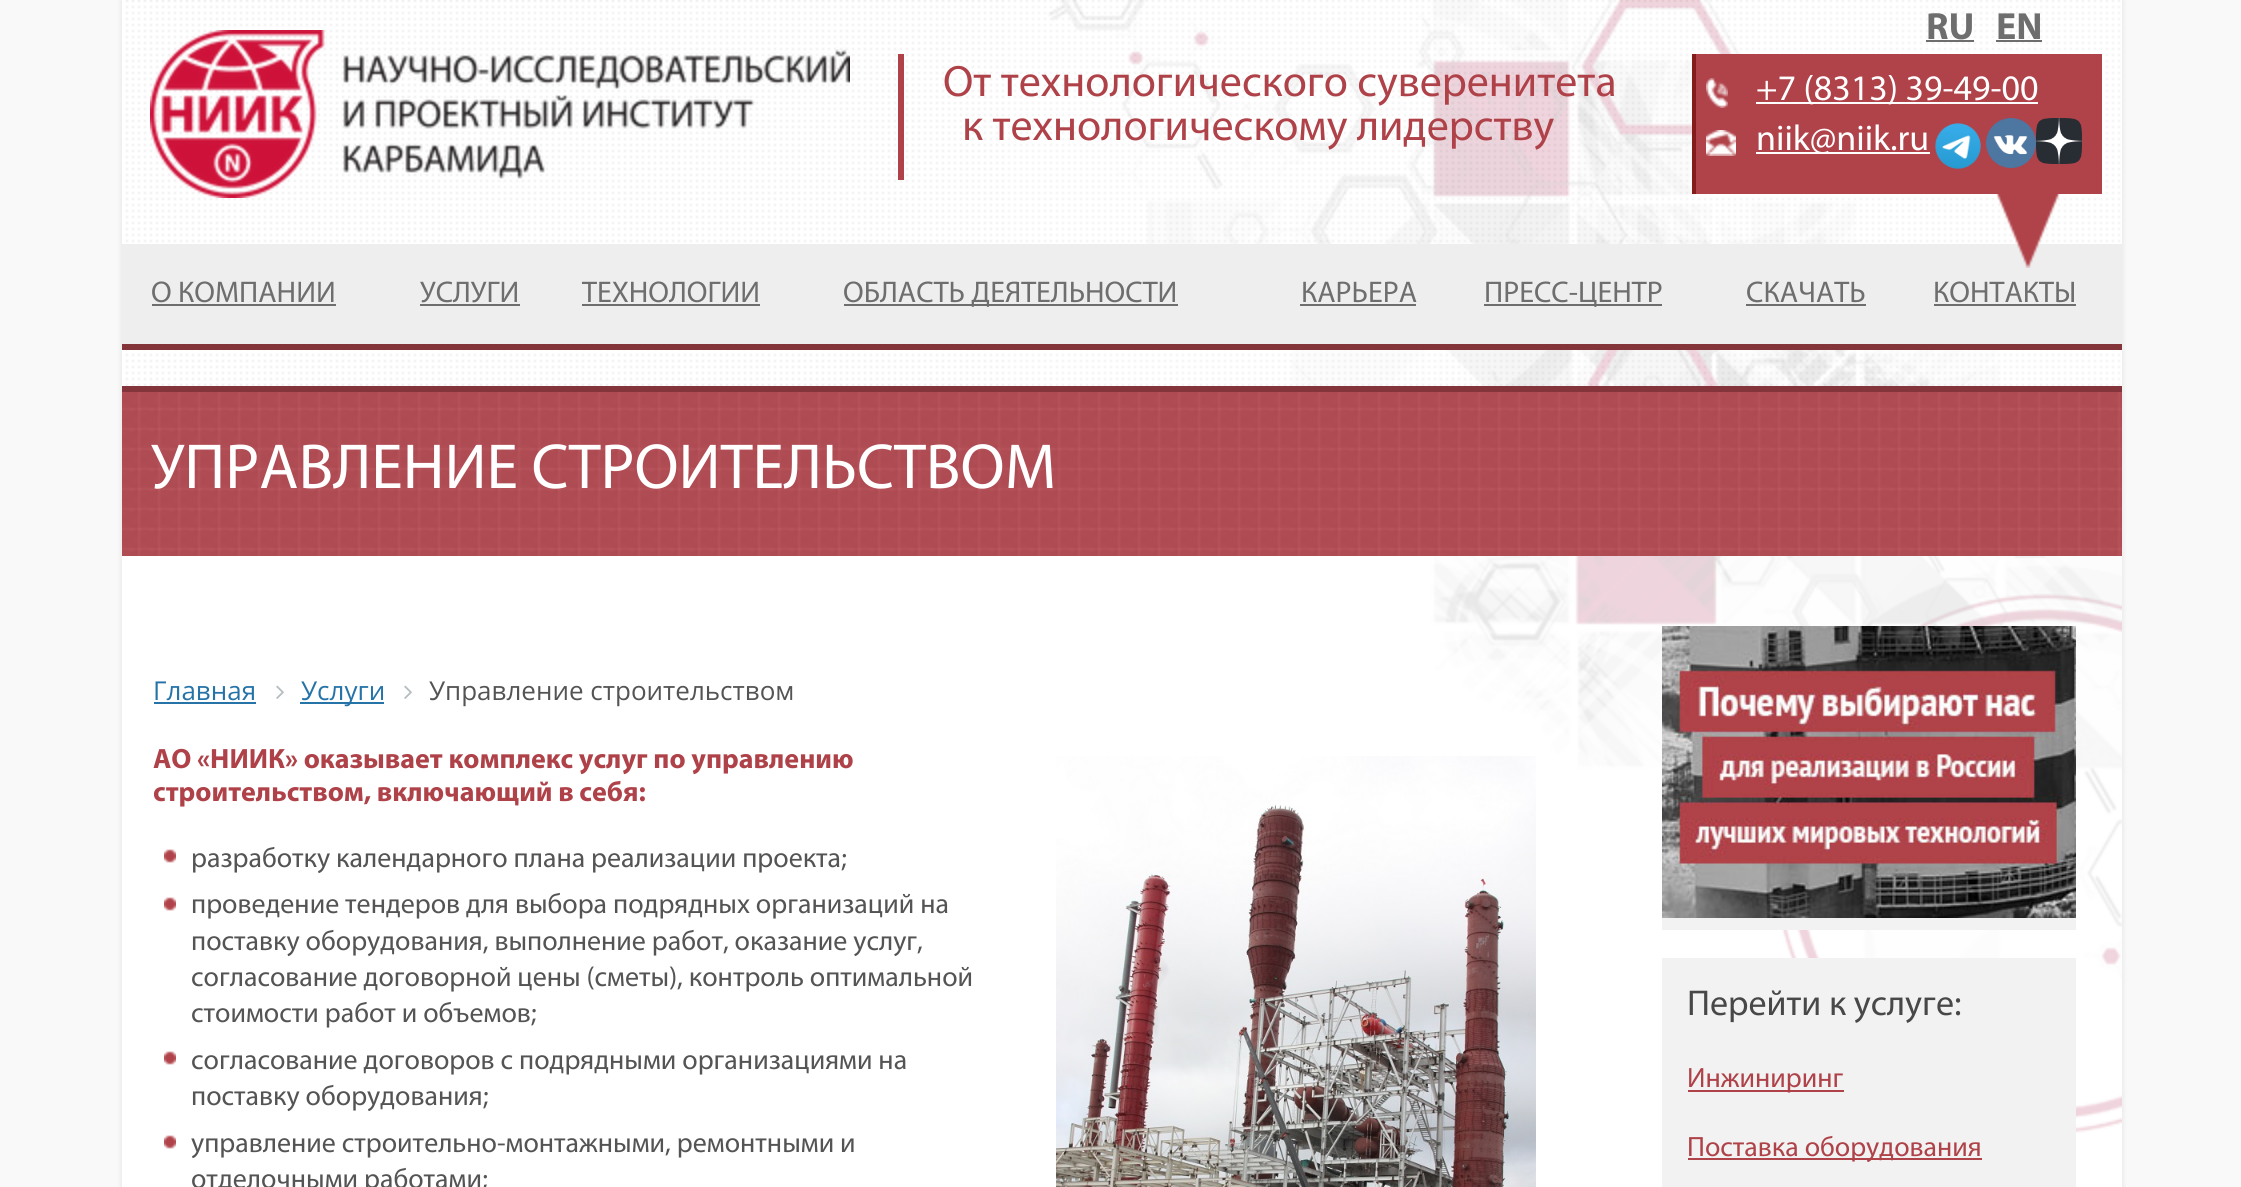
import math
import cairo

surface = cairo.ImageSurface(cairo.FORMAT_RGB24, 2241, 1187)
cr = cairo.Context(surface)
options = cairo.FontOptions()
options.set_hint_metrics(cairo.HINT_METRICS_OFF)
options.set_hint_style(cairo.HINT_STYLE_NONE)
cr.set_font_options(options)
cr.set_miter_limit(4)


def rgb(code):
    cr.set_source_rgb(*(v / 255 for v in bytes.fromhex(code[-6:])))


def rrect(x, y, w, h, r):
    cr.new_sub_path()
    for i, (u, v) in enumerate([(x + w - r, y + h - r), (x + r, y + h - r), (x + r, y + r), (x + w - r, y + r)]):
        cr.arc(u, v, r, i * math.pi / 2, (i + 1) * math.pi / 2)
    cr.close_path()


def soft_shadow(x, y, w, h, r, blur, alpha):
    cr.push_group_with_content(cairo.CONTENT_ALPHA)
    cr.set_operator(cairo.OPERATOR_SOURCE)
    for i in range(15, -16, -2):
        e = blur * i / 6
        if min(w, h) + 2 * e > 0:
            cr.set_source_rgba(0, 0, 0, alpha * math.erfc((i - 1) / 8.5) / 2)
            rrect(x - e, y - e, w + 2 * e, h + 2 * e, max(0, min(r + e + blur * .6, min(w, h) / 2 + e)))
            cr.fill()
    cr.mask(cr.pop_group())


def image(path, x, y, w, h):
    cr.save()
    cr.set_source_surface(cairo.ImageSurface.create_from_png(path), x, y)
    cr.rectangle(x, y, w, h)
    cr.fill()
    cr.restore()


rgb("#f9f9f9")
cr.paint()
rgb("#000000")
soft_shadow(122, 0, 2000, 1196, 0, 3, 0.1)
rgb("#ffffff")
cr.rectangle(122, 0, 2000, 1187)
cr.fill()
image("img/1.png", 125, 0, 1997, 1135)
image("img/2.png", 150, 30, 700, 168)
for x, y, w, h, color in [
    (898, 54, 6, 126, "#af4249"),
    (1696, 54, 406, 140, "#b04249"),
    (1692, 54, 4, 140, "#851c1c"),
    (1926, 40, 48, 2, "#6e6e6e"),
    (1996, 40, 46, 2, "#6e6e6e"),
]:
    rgb(color)
    cr.rectangle(x, y, w, h)
    cr.fill()
image("img/3.png", 1706, 78, 22, 30)
rgb("#ffffff")
cr.rectangle(1756, 102, 282, 2)
cr.fill()
image("img/4.png", 1706, 130, 30, 26)
cr.rectangle(1756, 152, 174, 2)
cr.fill()
image("img/5.png", 1935, 123, 46, 46)
image("img/6.png", 1986, 118, 50, 50)
image("img/7.png", 2036, 118, 46, 46)
rgb("#eeeeee")
cr.rectangle(122, 244, 2000, 100)
cr.fill()
image("img/8.png", 1996, 194, 65, 74)
for x, y, w, h, color in [
    (122, 344, 2000, 6, "#843539"),
    (152, 304, 184, 2, "#6e6e6e"),
    (420, 304, 100, 2, "#6e6e6e"),
    (582, 304, 178, 2, "#6e6e6e"),
    (844, 304, 334, 2, "#6e6e6e"),
    (1300, 304, 116, 2, "#6e6e6e"),
    (1484, 304, 178, 2, "#6e6e6e"),
    (1746, 304, 120, 2, "#6e6e6e"),
    (1934, 304, 142, 2, "#6e6e6e"),
]:
    rgb(color)
    cr.rectangle(x, y, w, h)
    cr.fill()
image("img/9.png", 122, 392, 2000, 164)
rgb("#84343b")
cr.rectangle(122, 386, 2000, 6)
cr.fill()
rgb("#2573a7")
cr.rectangle(154, 702, 102, 2)
cr.fill()
image("img/10.png", 276, 685, 8, 14)
cr.rectangle(300, 702, 84, 2)
cr.fill()
image("img/10.png", 404, 685, 8, 14)
image("img/11.png", 1056, 756, 480, 431)
image("img/12.png", 164, 849, 12, 14)
image("img/12.png", 164, 897, 12, 14)
image("img/12.png", 164, 1051, 12, 14)
image("img/12.png", 164, 1135, 12, 14)
rgb("#f2f2f2")
cr.rectangle(1662, 918, 414, 12)
cr.fill()
image("img/13.png", 1662, 626, 414, 292)
for x, y, w, h, color in [
    (1662, 958, 414, 229, "#f2f2f2"),
    (1688, 1090, 156, 2, "#b04249"),
    (1688, 1158, 294, 2, "#b04249"),
]:
    rgb(color)
    cr.rectangle(x, y, w, h)
    cr.fill()
cr.select_font_face("Myriad")
cr.set_font_size(44)
rgb("#af4249")
cr.move_to(943, 96)
cr.show_text("От технологического суверенитета")
cr.move_to(962, 140)
cr.show_text("к технологическому лидерству")
cr.select_font_face("Myriad", cairo.FONT_SLANT_NORMAL, cairo.FONT_WEIGHT_BOLD)
cr.set_font_size(38)
rgb("#6e6e6e")
cr.move_to(1926, 39)
cr.show_text("RU")
cr.move_to(1996, 39)
cr.show_text("EN")
cr.select_font_face("Myriad")
cr.set_font_size(36)
rgb("#ffffff")
cr.move_to(1756, 100)
cr.show_text("+7 (8313) 39-49-00")
cr.move_to(1756, 150)
cr.show_text("niik@niik.ru")
cr.set_font_size(30)
rgb("#6e6e6e")
for x, y, s in [
    (151, 302, "О КОМПАНИИ"),
    (420, 302, "УСЛУГИ"),
    (582, 302, "ТЕХНОЛОГИИ"),
    (843, 302, "ОБЛАСТЬ ДЕЯТЕЛЬНОСТИ"),
    (1301, 302, "КАРЬЕРА"),
    (1484, 302, "ПРЕСС-ЦЕНТР"),
    (1746, 302, "СКАЧАТЬ"),
    (1933, 302, "КОНТАКТЫ"),
]:
    cr.move_to(x, y)
    cr.show_text(s)
cr.set_font_size(64)
rgb("#ffffff")
cr.move_to(151, 488)
cr.show_text("УПРАВЛЕНИЕ СТРОИТЕЛЬСТВОМ")
cr.select_font_face("Open Sans")
cr.set_font_size(26)
rgb("#2573a7")
cr.move_to(153, 700)
cr.show_text("Главная")
cr.move_to(301, 700)
cr.show_text("Услуги")
rgb("#545454")
cr.move_to(429, 700)
cr.show_text("Управление строительством")
cr.select_font_face("Myriad", cairo.FONT_SLANT_NORMAL, cairo.FONT_WEIGHT_BOLD)
cr.set_font_size(28)
rgb("#af4249")
cr.move_to(153, 768)
cr.show_text("АО «НИИК» оказывает комплекс услуг по управлению")
cr.move_to(153, 801)
cr.show_text("строительством, включающий в себя:")
cr.select_font_face("Myriad")
rgb("#545454")
for x, y, s in [
    (191, 867, "разработку календарного плана реализации проекта;"),
    (191, 913, "проведение тендеров для выбора подрядных организаций на"),
    (191, 950, "поставку оборудования, выполнение работ, оказание услуг,"),
    (191, 986, "согласование договорной цены (сметы), контроль оптимальной"),
    (191, 1022, "стоимости работ и объемов;"),
    (191, 1069, "согласование договоров с подрядными организациями на"),
    (191, 1105, "поставку оборудования;"),
    (191, 1152, "управление строительно-монтажными, ремонтными и"),
    (191, 1188, "отделочными работами;"),
]:
    cr.move_to(x, y)
    cr.show_text(s)
cr.set_font_size(36)
rgb("#484848")
cr.move_to(1687, 1015)
cr.show_text("Перейти к услуге:")
cr.set_font_size(28)
rgb("#af4249")
cr.move_to(1687, 1087)
cr.show_text("Инжиниринг")
cr.move_to(1687, 1156)
cr.show_text("Поставка оборудования")
surface.write_to_png("page.png")
